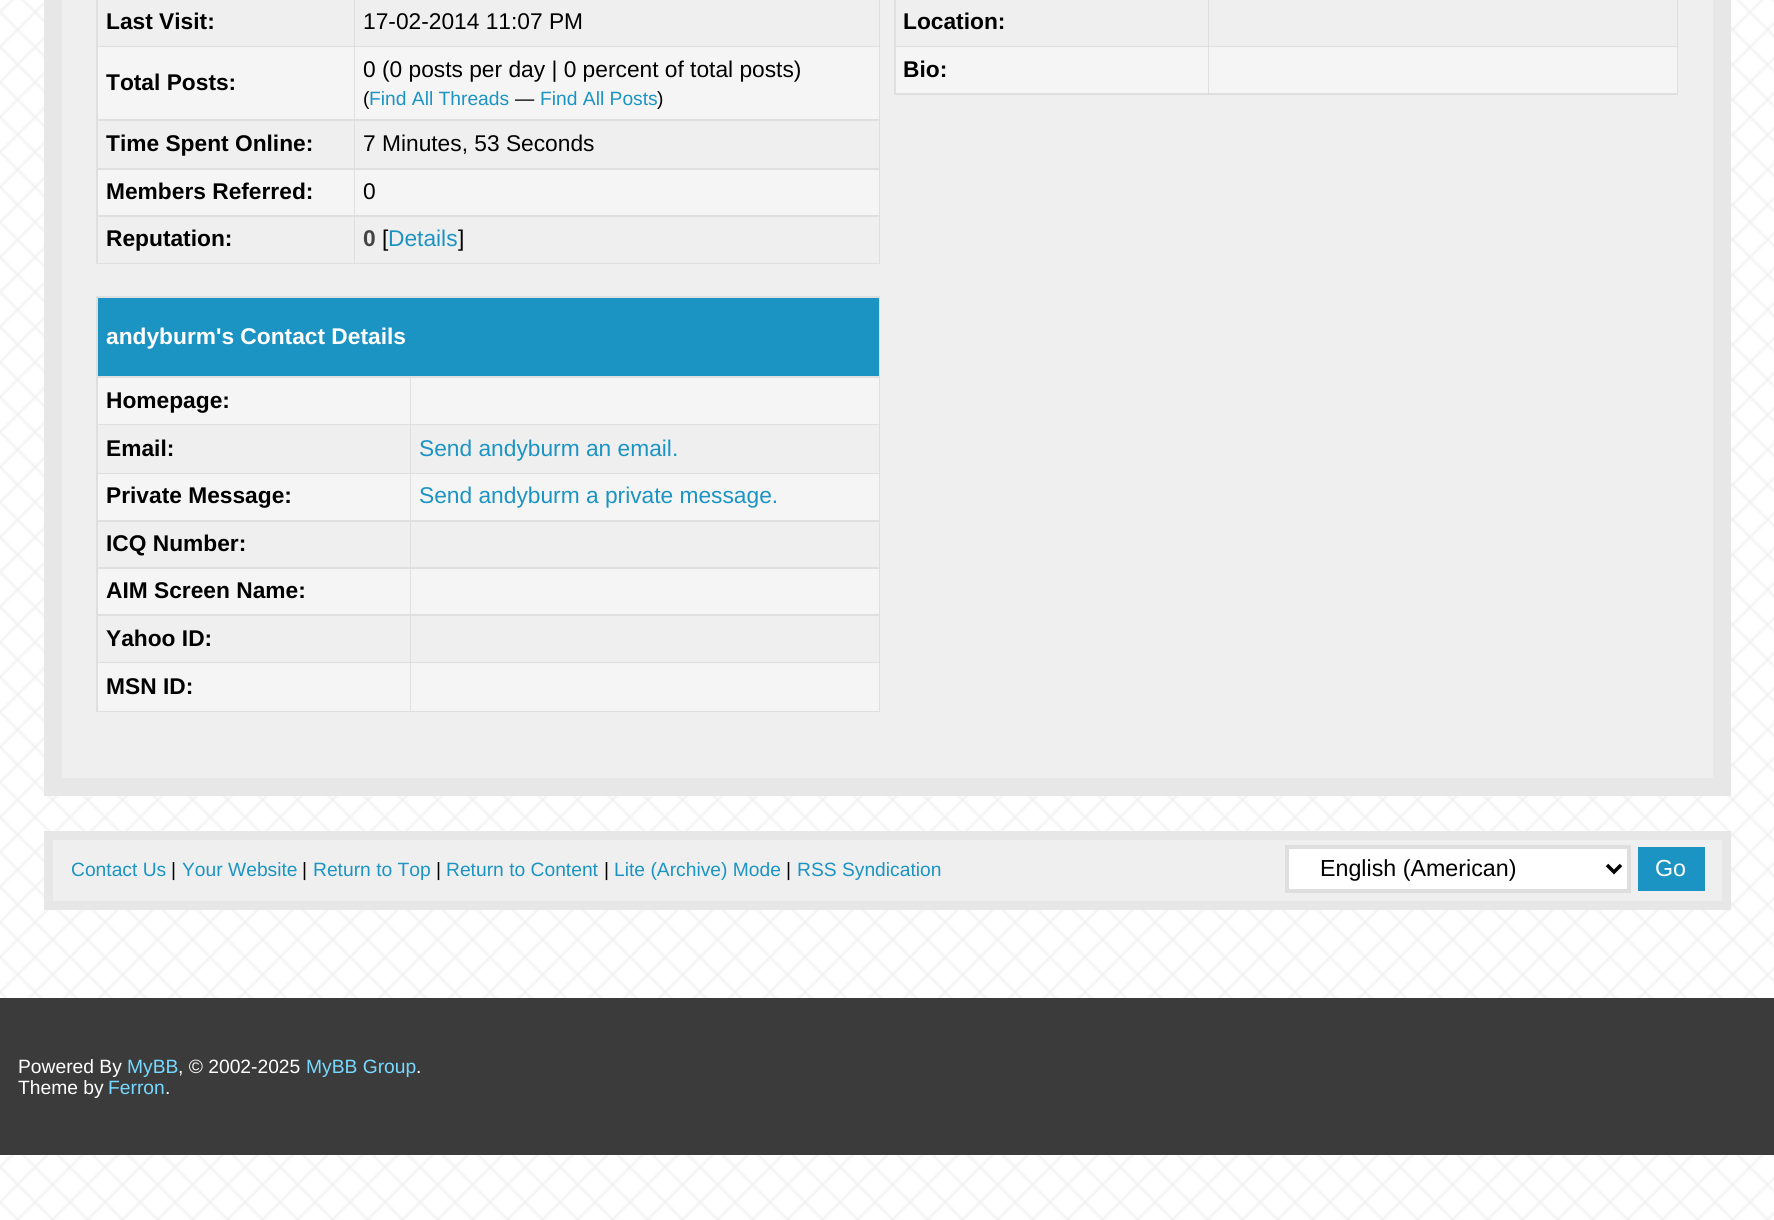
import math
import cairo

surface = cairo.ImageSurface(cairo.FORMAT_RGB24, 1774, 1220)
cr = cairo.Context(surface)
options = cairo.FontOptions()
options.set_hint_metrics(cairo.HINT_METRICS_OFF)
options.set_hint_style(cairo.HINT_STYLE_NONE)
cr.set_font_options(options)
cr.set_miter_limit(4)


def rgb(code):
    cr.set_source_rgb(*(v / 255 for v in bytes.fromhex(code[-6:])))


def image(path, x, y, w, h):
    cr.save()
    cr.set_source_surface(cairo.ImageSurface.create_from_png(path), x, y)
    cr.rectangle(x, y, w, h)
    cr.fill()
    cr.restore()


rgb("#ffffff")
cr.paint()
image("img/1.png", 0, 0, 1774, 1220)
rgb("#efefef")
cr.rectangle(53, -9, 1669, 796)
cr.fill_preserve()
rgb("#e7e7e7")
cr.set_line_width(18)
cr.stroke()
for x, y, w, h, color in [
    (96, 0, 784, 264, "#dfdfdf"),
    (98, 0, 256, 46, "#efefef"),
    (355, 0, 524, 46, "#efefef"),
    (98, 47, 256, 72, "#f5f5f5"),
    (355, 47, 524, 72, "#f5f5f5"),
    (98, 121, 256, 47, "#efefef"),
    (355, 121, 524, 47, "#efefef"),
    (98, 170, 256, 45, "#f5f5f5"),
    (355, 170, 524, 45, "#f5f5f5"),
    (98, 217, 256, 46, "#efefef"),
    (355, 217, 524, 46, "#efefef"),
    (96, 296, 784, 416, "#dfdfdf"),
    (98, 298, 781, 78, "#1b94c3"),
    (98, 378, 312, 46, "#f5f5f5"),
    (411, 378, 468, 46, "#f5f5f5"),
    (98, 425, 312, 48, "#efefef"),
    (411, 425, 468, 48, "#efefef"),
    (98, 474, 312, 46, "#f5f5f5"),
    (411, 474, 468, 46, "#f5f5f5"),
    (98, 522, 312, 45, "#efefef"),
    (411, 522, 468, 45, "#efefef"),
    (98, 569, 312, 45, "#f5f5f5"),
    (411, 569, 468, 45, "#f5f5f5"),
    (98, 616, 312, 46, "#efefef"),
    (411, 616, 468, 46, "#efefef"),
    (98, 663, 312, 48, "#f5f5f5"),
    (411, 663, 468, 48, "#f5f5f5"),
    (894, 0, 784, 95, "#dfdfdf"),
    (896, 0, 312, 46, "#efefef"),
    (1209, 0, 468, 46, "#efefef"),
    (896, 47, 312, 46, "#f5f5f5"),
    (1209, 47, 468, 46, "#f5f5f5"),
]:
    rgb(color)
    cr.rectangle(x, y, w, h)
    cr.fill()
rgb("#efefef")
cr.rectangle(48.5, 835.5, 1678, 70)
cr.fill_preserve()
rgb("#e7e7e7")
cr.set_line_width(9)
cr.stroke()
rgb("#ffffff")
cr.rectangle(1287, 847, 342, 44)
cr.fill_preserve()
rgb("#dedede")
cr.set_line_width(4)
cr.stroke()
cr.new_path()
cr.move_to(1607, 865)
cr.line_to(1614, 872)
cr.line_to(1621, 865)
rgb("#000000")
cr.set_line_width(3.5)
cr.stroke()
rgb("#1b94c3")
cr.rectangle(1638, 847, 67, 44)
cr.fill()
rgb("#3b3b3b")
cr.rectangle(0, 998, 1774, 157)
cr.fill()
cr.select_font_face("Liberation Sans", cairo.FONT_SLANT_NORMAL, cairo.FONT_WEIGHT_BOLD)
cr.set_font_size(22.75)
rgb("#000000")
cr.move_to(106, 29)
cr.show_text("Last Visit:")
cr.select_font_face("Liberation Sans")
cr.move_to(363, 29)
cr.show_text("17-02-2014 11:07 PM")
cr.select_font_face("Liberation Sans", cairo.FONT_SLANT_NORMAL, cairo.FONT_WEIGHT_BOLD)
cr.move_to(106, 90)
cr.show_text("Total Posts:")
cr.select_font_face("Liberation Sans")
cr.move_to(363, 77)
cr.show_text("0 (0 posts per day | 0 percent of total posts)")
cr.set_font_size(19.25)
cr.move_to(363, 105)
cr.show_text("(")
rgb("#1b94c3")
cr.move_to(369, 105)
cr.show_text("Find All Threads")
rgb("#000000")
cr.move_to(515, 105)
cr.show_text("—")
rgb("#1b94c3")
cr.move_to(540, 105)
cr.show_text("Find All Posts")
rgb("#000000")
cr.move_to(657, 105)
cr.show_text(")")
cr.select_font_face("Liberation Sans", cairo.FONT_SLANT_NORMAL, cairo.FONT_WEIGHT_BOLD)
cr.set_font_size(22.75)
cr.move_to(106, 151)
cr.show_text("Time Spent Online:")
cr.select_font_face("Liberation Sans")
cr.move_to(363, 151)
cr.show_text("7 Minutes, 53 Seconds")
cr.select_font_face("Liberation Sans", cairo.FONT_SLANT_NORMAL, cairo.FONT_WEIGHT_BOLD)
cr.move_to(106, 199)
cr.show_text("Members Referred:")
cr.select_font_face("Liberation Sans")
cr.move_to(363, 199)
cr.show_text("0")
cr.select_font_face("Liberation Sans", cairo.FONT_SLANT_NORMAL, cairo.FONT_WEIGHT_BOLD)
cr.move_to(106, 246)
cr.show_text("Reputation:")
rgb("#444444")
cr.move_to(363, 246)
cr.show_text("0")
cr.select_font_face("Liberation Sans")
rgb("#000000")
cr.move_to(382, 246)
cr.show_text("[")
rgb("#1b94c3")
cr.move_to(388, 246)
cr.show_text("Details")
rgb("#000000")
cr.move_to(458, 246)
cr.show_text("]")
cr.select_font_face("Liberation Sans", cairo.FONT_SLANT_NORMAL, cairo.FONT_WEIGHT_BOLD)
rgb("#ffffff")
cr.move_to(106, 344)
cr.show_text("andyburm's Contact Details")
rgb("#000000")
cr.move_to(106, 408)
cr.show_text("Homepage:")
cr.move_to(106, 456)
cr.show_text("Email:")
cr.select_font_face("Liberation Sans")
rgb("#1b94c3")
cr.move_to(419, 456)
cr.show_text("Send andyburm an email.")
cr.select_font_face("Liberation Sans", cairo.FONT_SLANT_NORMAL, cairo.FONT_WEIGHT_BOLD)
rgb("#000000")
cr.move_to(106, 503)
cr.show_text("Private Message:")
cr.select_font_face("Liberation Sans")
rgb("#1b94c3")
cr.move_to(419, 503)
cr.show_text("Send andyburm a private message.")
cr.select_font_face("Liberation Sans", cairo.FONT_SLANT_NORMAL, cairo.FONT_WEIGHT_BOLD)
rgb("#000000")
for x, y, s in [
    (106, 551, "ICQ Number:"),
    (106, 598, "AIM Screen Name:"),
    (106, 646, "Yahoo ID:"),
    (106, 694, "MSN ID:"),
    (903, 29, "Location:"),
    (903, 77, "Bio:"),
]:
    cr.move_to(x, y)
    cr.show_text(s)
cr.select_font_face("Liberation Sans")
cr.set_font_size(19.25)
rgb("#1b94c3")
cr.move_to(71, 876)
cr.show_text("Contact Us")
rgb("#000000")
cr.move_to(171, 876)
cr.show_text("|")
rgb("#1b94c3")
cr.move_to(182, 876)
cr.show_text("Your Website")
rgb("#000000")
cr.move_to(302, 876)
cr.show_text("|")
rgb("#1b94c3")
cr.move_to(313, 876)
cr.show_text("Return to Top")
rgb("#000000")
cr.move_to(436, 876)
cr.show_text("|")
rgb("#1b94c3")
cr.move_to(446, 876)
cr.show_text("Return to Content")
rgb("#000000")
cr.move_to(604, 876)
cr.show_text("|")
rgb("#1b94c3")
cr.move_to(614, 876)
cr.show_text("Lite (Archive) Mode")
rgb("#000000")
cr.move_to(786, 876)
cr.show_text("|")
rgb("#1b94c3")
cr.move_to(797, 876)
cr.show_text("RSS Syndication")
cr.set_font_size(23.25)
rgb("#000000")
cr.move_to(1320, 876)
cr.show_text("English (American)")
rgb("#ffffff")
cr.move_to(1655, 876)
cr.show_text("Go")
cr.set_font_size(19.25)
cr.move_to(18, 1073)
cr.show_text("Powered By")
rgb("#77d9ff")
cr.move_to(127, 1073)
cr.show_text("MyBB")
rgb("#ffffff")
cr.move_to(178, 1073)
cr.show_text(", © 2002-2025")
rgb("#77d9ff")
cr.move_to(306, 1073)
cr.show_text("MyBB Group")
rgb("#ffffff")
cr.move_to(416, 1073)
cr.show_text(".")
cr.move_to(18, 1094)
cr.show_text("Theme by")
rgb("#77d9ff")
cr.move_to(108, 1094)
cr.show_text("Ferron")
rgb("#ffffff")
cr.move_to(165, 1094)
cr.show_text(".")
surface.write_to_png("page.png")
